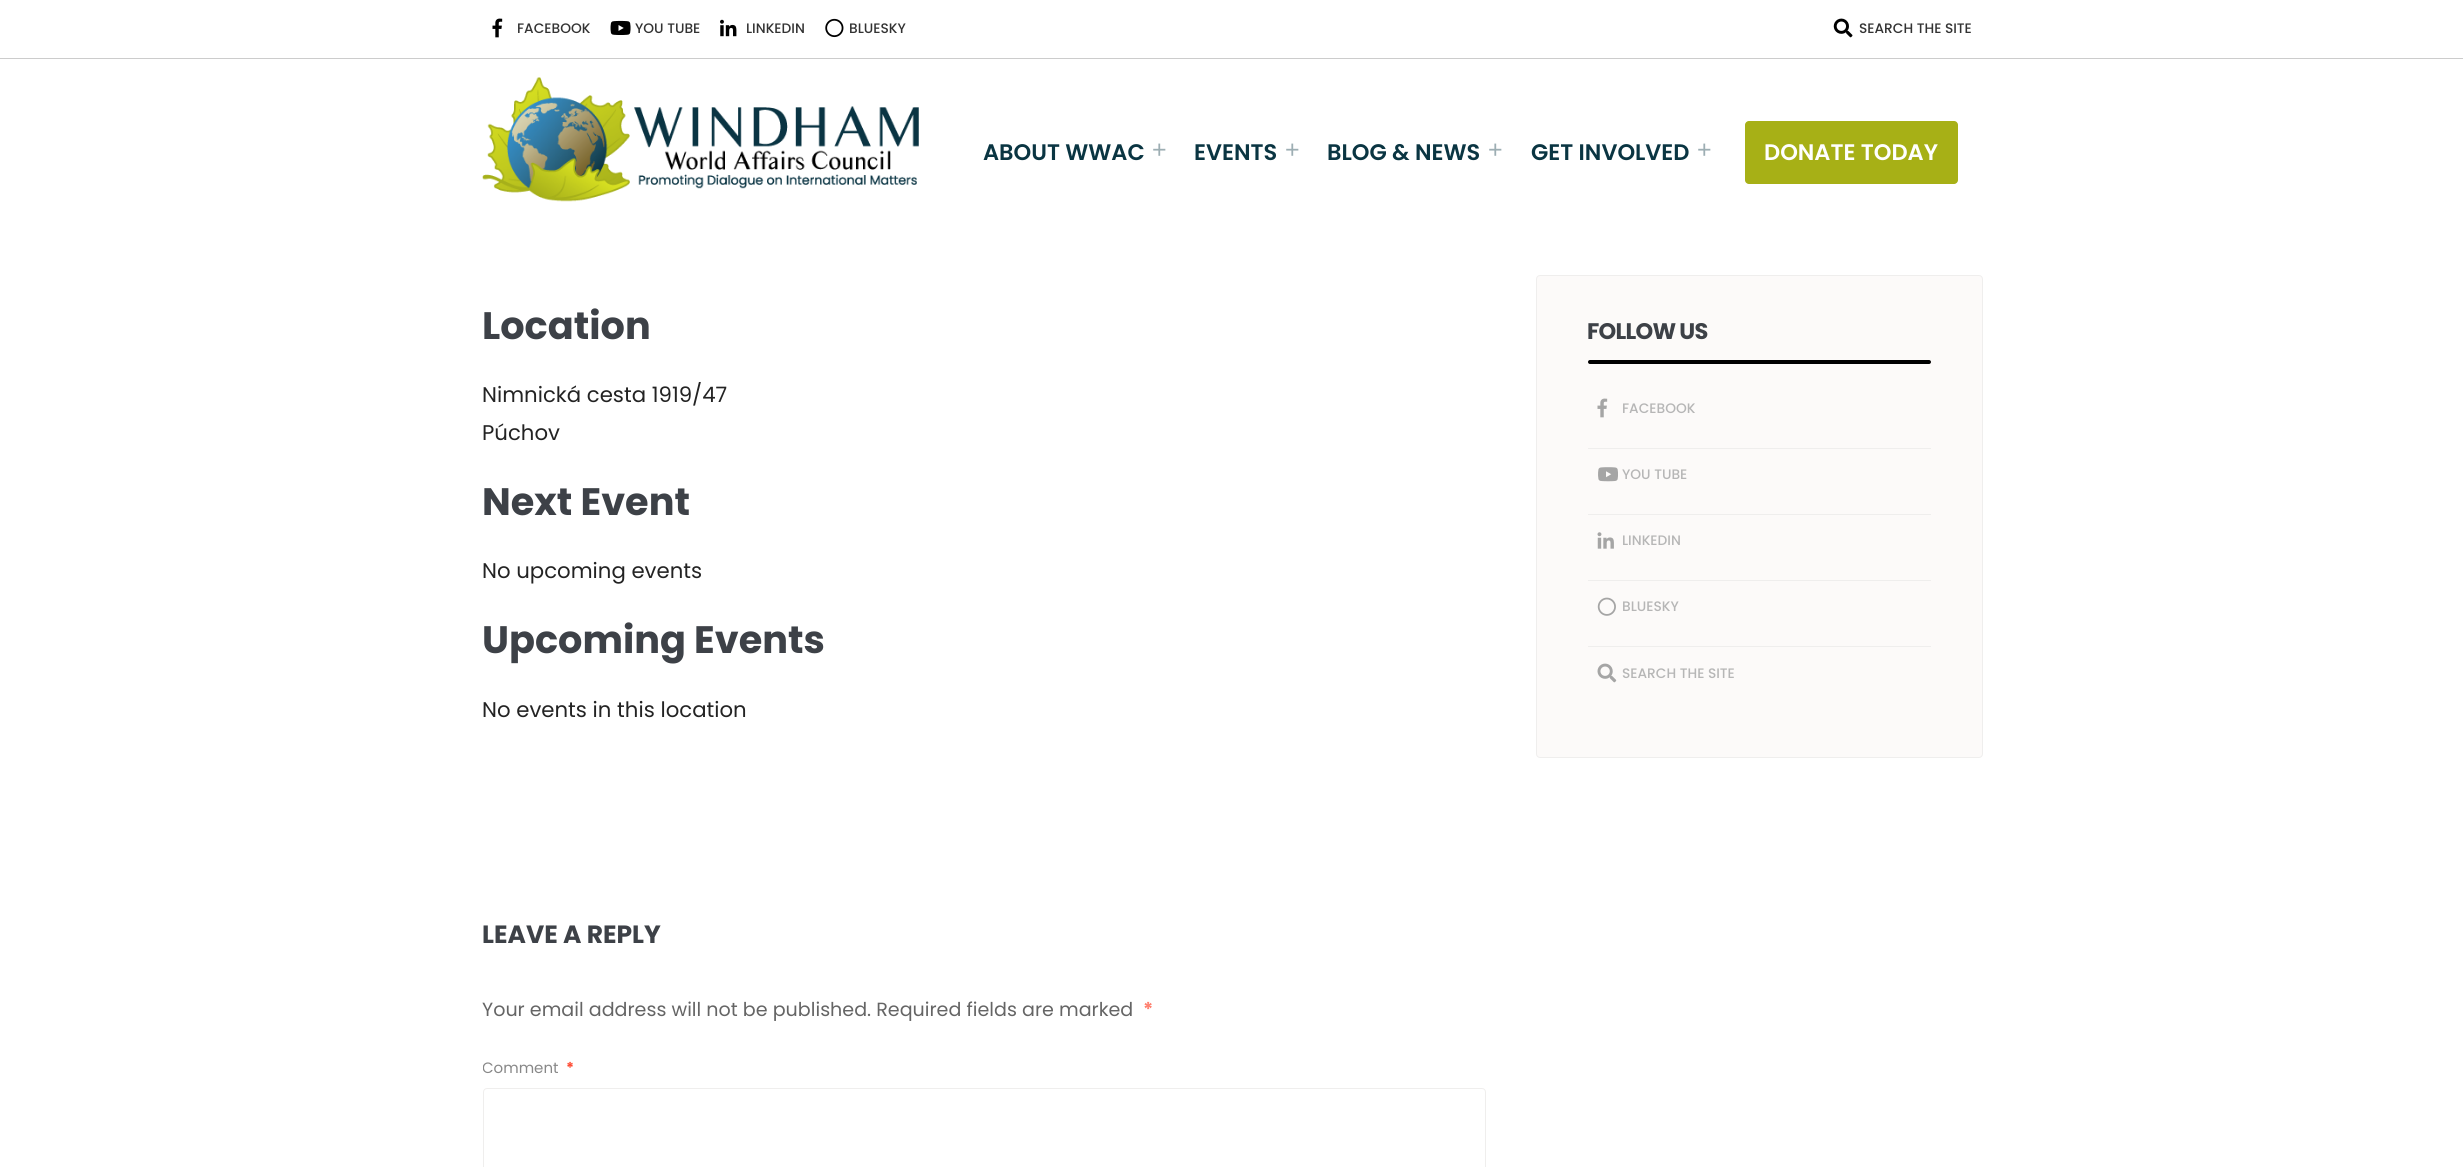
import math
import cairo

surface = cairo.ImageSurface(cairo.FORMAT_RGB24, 2463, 1167)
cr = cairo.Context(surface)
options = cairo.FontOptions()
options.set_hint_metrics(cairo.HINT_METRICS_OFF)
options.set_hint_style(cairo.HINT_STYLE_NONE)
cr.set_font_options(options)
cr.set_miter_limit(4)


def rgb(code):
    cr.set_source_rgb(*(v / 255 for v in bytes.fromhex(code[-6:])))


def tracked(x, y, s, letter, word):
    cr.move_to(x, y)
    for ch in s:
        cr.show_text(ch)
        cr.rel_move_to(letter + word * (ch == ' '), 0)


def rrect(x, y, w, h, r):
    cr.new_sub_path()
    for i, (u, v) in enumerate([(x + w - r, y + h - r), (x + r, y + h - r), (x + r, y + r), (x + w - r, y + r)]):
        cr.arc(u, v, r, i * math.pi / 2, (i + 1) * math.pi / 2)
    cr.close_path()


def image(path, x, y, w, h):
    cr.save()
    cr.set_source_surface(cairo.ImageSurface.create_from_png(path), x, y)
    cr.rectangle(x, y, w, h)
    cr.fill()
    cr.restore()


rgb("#ffffff")
cr.paint()
rgb("#cccccc")
cr.rectangle(0, 58, 2463, 1)
cr.fill()
image("img/1.png", 492, 18, 11, 20)
image("img/2.png", 610, 20, 21, 15)
image("img/3.png", 720, 19, 17, 18)
image("img/4.png", 825, 18, 19, 20)
image("img/5.png", 1833, 18, 20, 20)
image("img/6.png", 482, 77, 437, 125)
rgb("#a7b016")
rrect(1745, 121, 213, 63, 4)
cr.fill()
rrect(483.5, 1088.5, 1002, 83, 3.5)
rgb("#efeeed")
cr.set_line_width(1)
cr.stroke()
rgb("#fcfaf9")
rrect(1536.5, 275.5, 446, 482, 3.5)
cr.fill_preserve()
rgb("#efeeed")
cr.stroke()
rgb("#000000")
rrect(1588, 360, 343, 4, 2)
cr.fill()
image("img/7.png", 1597, 398, 11, 20)
rgb("#efeeed")
cr.rectangle(1588, 448, 343, 1)
cr.fill()
image("img/8.png", 1598, 467, 20, 15)
cr.rectangle(1588, 514, 343, 1)
cr.fill()
image("img/9.png", 1597, 532, 17, 17)
cr.rectangle(1588, 580, 343, 1)
cr.fill()
image("img/10.png", 1597, 597, 19, 19)
cr.rectangle(1588, 646, 343, 1)
cr.fill()
image("img/11.png", 1597, 663, 20, 20)
cr.select_font_face("Poppins Medium")
cr.set_font_size(13.75)
rgb("#333333")
for x, y, s in [
    (517, 33, "FACEBOOK"),
    (635, 33, "YOU TUBE"),
    (746, 33, "LINKEDIN"),
    (849, 33, "BLUESKY"),
    (1859, 33, "SEARCH THE SITE"),
]:
    cr.move_to(x, y)
    cr.show_text(s)
cr.select_font_face("Poppins SemiBold")
cr.set_font_size(22.5)
rgb("#0a3542")
cr.move_to(983, 160)
cr.show_text("ABOUT WWAC")
cr.select_font_face("Liberation Sans")
cr.set_font_size(25)
rgb("#9daeb3")
cr.move_to(1152, 158)
cr.show_text("+")
cr.select_font_face("Poppins SemiBold")
cr.set_font_size(22.5)
rgb("#0a3542")
cr.move_to(1194, 160)
cr.show_text("EVENTS")
cr.select_font_face("Liberation Sans")
cr.set_font_size(25)
rgb("#9daeb3")
cr.move_to(1285, 158)
cr.show_text("+")
cr.select_font_face("Poppins SemiBold")
cr.set_font_size(22.5)
rgb("#0a3542")
cr.move_to(1327, 160)
cr.show_text("BLOG & NEWS")
cr.select_font_face("Liberation Sans")
cr.set_font_size(25)
rgb("#9daeb3")
cr.move_to(1488, 158)
cr.show_text("+")
cr.select_font_face("Poppins SemiBold")
cr.set_font_size(22.5)
rgb("#0a3542")
cr.move_to(1531, 160)
cr.show_text("GET INVOLVED")
cr.select_font_face("Liberation Sans")
cr.set_font_size(25)
rgb("#9daeb3")
cr.move_to(1697, 158)
cr.show_text("+")
cr.select_font_face("Poppins SemiBold")
cr.set_font_size(22.5)
rgb("#ffffff")
cr.move_to(1764, 160)
cr.show_text("DONATE TODAY")
cr.select_font_face("Poppins", cairo.FONT_SLANT_NORMAL, cairo.FONT_WEIGHT_BOLD)
cr.set_font_size(38.25)
rgb("#3d4147")
cr.move_to(482, 339)
cr.show_text("Location")
cr.select_font_face("Poppins")
cr.set_font_size(21.25)
rgb("#232323")
cr.move_to(482, 402)
cr.show_text("Nimnická cesta 1919/47")
cr.move_to(482, 440)
cr.show_text("Púchov")
cr.select_font_face("Poppins", cairo.FONT_SLANT_NORMAL, cairo.FONT_WEIGHT_BOLD)
cr.set_font_size(38.25)
rgb("#3d4147")
cr.move_to(482, 515)
cr.show_text("Next Event")
cr.select_font_face("Poppins")
cr.set_font_size(21.25)
rgb("#232323")
cr.move_to(482, 578)
cr.show_text("No upcoming events")
cr.select_font_face("Poppins", cairo.FONT_SLANT_NORMAL, cairo.FONT_WEIGHT_BOLD)
cr.set_font_size(38.25)
rgb("#3d4147")
cr.move_to(482, 653)
cr.show_text("Upcoming Events")
cr.select_font_face("Poppins")
cr.set_font_size(21.25)
rgb("#232323")
cr.move_to(482, 717)
cr.show_text("No events in this location")
cr.select_font_face("Poppins", cairo.FONT_SLANT_NORMAL, cairo.FONT_WEIGHT_BOLD)
cr.set_font_size(25)
rgb("#3d4147")
cr.move_to(482, 943)
cr.show_text("LEAVE A REPLY")
cr.select_font_face("Poppins")
cr.set_font_size(19.1)
rgb("#656565")
cr.move_to(482, 1016)
cr.show_text("Your email address will not be published. Required fields are marked")
cr.select_font_face("Poppins", cairo.FONT_SLANT_NORMAL, cairo.FONT_WEIGHT_BOLD)
rgb("#ff8170")
cr.move_to(1143, 1016)
cr.show_text("*")
cr.save()
cr.rectangle(483, 878, 1003, 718)
cr.clip()
cr.select_font_face("Poppins")
cr.set_font_size(15)
rgb("#888888")
cr.move_to(482, 1073)
cr.show_text("Comment")
cr.restore()
cr.set_font_size(15)
rgb("#ff4b33")
cr.move_to(566, 1073)
cr.show_text("*")
cr.set_font_size(22.5)
rgb("#3d4147")
tracked(1587, 339, "FOLLOW US", -0.75, 0)
cr.select_font_face("Poppins Medium")
cr.set_font_size(13.75)
rgb("#b6b6b6")
for x, y, s in [
    (1622, 413, "FACEBOOK"),
    (1622, 479, "YOU TUBE"),
    (1622, 545, "LINKEDIN"),
    (1622, 611, "BLUESKY"),
    (1622, 678, "SEARCH THE SITE"),
]:
    cr.move_to(x, y)
    cr.show_text(s)
surface.write_to_png("page.png")
